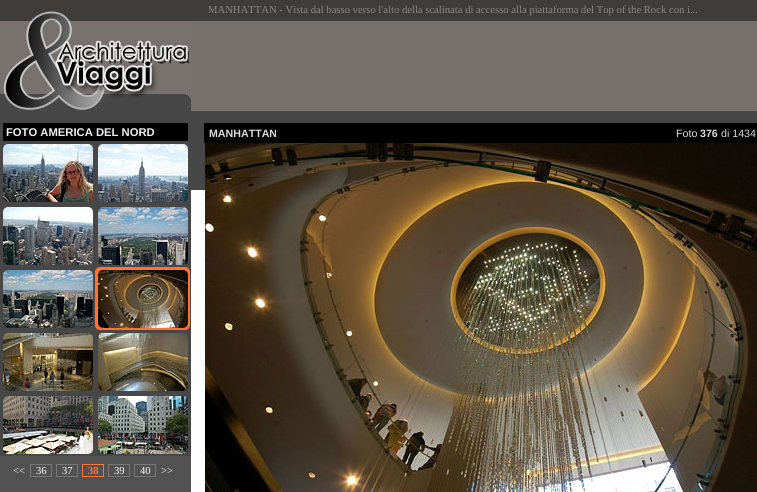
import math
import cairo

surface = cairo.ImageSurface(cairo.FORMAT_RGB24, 757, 492)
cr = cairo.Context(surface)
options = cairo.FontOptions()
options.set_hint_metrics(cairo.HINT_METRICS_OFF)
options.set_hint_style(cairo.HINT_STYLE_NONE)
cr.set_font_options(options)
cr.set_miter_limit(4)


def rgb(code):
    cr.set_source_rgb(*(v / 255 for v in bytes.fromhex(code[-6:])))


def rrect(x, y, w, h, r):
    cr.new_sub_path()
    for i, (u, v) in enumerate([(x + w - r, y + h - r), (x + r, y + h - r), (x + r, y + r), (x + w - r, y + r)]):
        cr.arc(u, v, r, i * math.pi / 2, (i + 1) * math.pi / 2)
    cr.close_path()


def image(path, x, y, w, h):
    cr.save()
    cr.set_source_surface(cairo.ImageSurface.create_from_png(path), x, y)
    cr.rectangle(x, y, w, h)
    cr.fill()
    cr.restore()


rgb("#fdfdfd")
cr.paint()
image("img/1.png", 191, 0, 566, 190)
rgb("#525252")
cr.rectangle(0, 456, 191, 36)
cr.fill()
rgb("#474747")
cr.rectangle(0, 111, 191, 345)
cr.fill()
image("img/2.png", 0, 0, 191, 111)
rgb("#000000")
cr.rectangle(3, 123, 185, 18)
cr.fill()
image("img/3.png", 3, 144, 90, 58)
image("img/4.png", 98, 144, 90, 58)
image("img/5.png", 3, 207, 90, 58)
image("img/6.png", 98, 207, 90, 58)
image("img/7.png", 3, 270, 90, 58)
rgb("#ff7136")
rrect(95, 267, 95, 63, 5)
cr.fill()
image("img/8.png", 98, 270, 90, 58)
image("img/9.png", 3, 333, 90, 58)
image("img/10.png", 98, 333, 90, 58)
image("img/11.png", 3, 396, 90, 58)
image("img/12.png", 98, 396, 90, 58)
cr.rectangle(30.5, 464.5, 21, 12)
rgb("#777777")
cr.set_line_width(1)
cr.stroke()
cr.rectangle(56.5, 464.5, 21, 12)
cr.stroke()
cr.rectangle(82.5, 464.5, 21, 12)
rgb("#ff7136")
cr.stroke()
cr.rectangle(108.5, 464.5, 21, 12)
rgb("#777777")
cr.stroke()
cr.rectangle(134.5, 464.5, 21, 12)
cr.stroke()
rgb("#000000")
cr.rectangle(204, 123, 553, 20)
cr.fill()
image("img/13.png", 205, 143, 552, 349)
cr.select_font_face("Liberation Serif")
cr.set_font_size(10.65)
rgb("#888888")
cr.move_to(208, 13)
cr.show_text("MANHATTAN - Vista dal basso verso l'alto della scalinata di accesso alla piattaforma del Top of the Rock con i...")
cr.select_font_face("Liberation Sans", cairo.FONT_SLANT_NORMAL, cairo.FONT_WEIGHT_BOLD)
cr.set_font_size(11.25)
rgb("#eeeeee")
cr.move_to(6, 136)
cr.show_text("FOTO AMERICA DEL NORD")
cr.select_font_face("Liberation Serif")
cr.set_font_size(10.65)
rgb("#fcfcfc")
for x, y, s in [
    (13, 474, "<<"),
    (36, 474, "36"),
    (62, 474, "37"),
]:
    cr.move_to(x, y)
    cr.show_text(s)
cr.select_font_face("Liberation Serif", cairo.FONT_SLANT_NORMAL, cairo.FONT_WEIGHT_BOLD)
rgb("#ff7136")
cr.move_to(88, 474)
cr.show_text("38")
cr.select_font_face("Liberation Serif")
rgb("#fcfcfc")
for x, y, s in [
    (114, 474, "39"),
    (140, 474, "40"),
    (161, 474, ">>"),
]:
    cr.move_to(x, y)
    cr.show_text(s)
cr.select_font_face("Liberation Sans", cairo.FONT_SLANT_NORMAL, cairo.FONT_WEIGHT_BOLD)
rgb("#dddddd")
cr.move_to(209, 137)
cr.show_text("MANHATTAN")
cr.select_font_face("Liberation Sans")
cr.move_to(676, 137)
cr.show_text("Foto")
cr.select_font_face("Liberation Sans", cairo.FONT_SLANT_NORMAL, cairo.FONT_WEIGHT_BOLD)
cr.move_to(700, 137)
cr.show_text("376")
cr.select_font_face("Liberation Sans")
cr.move_to(721, 137)
cr.show_text("di 1434")
surface.write_to_png("page.png")
